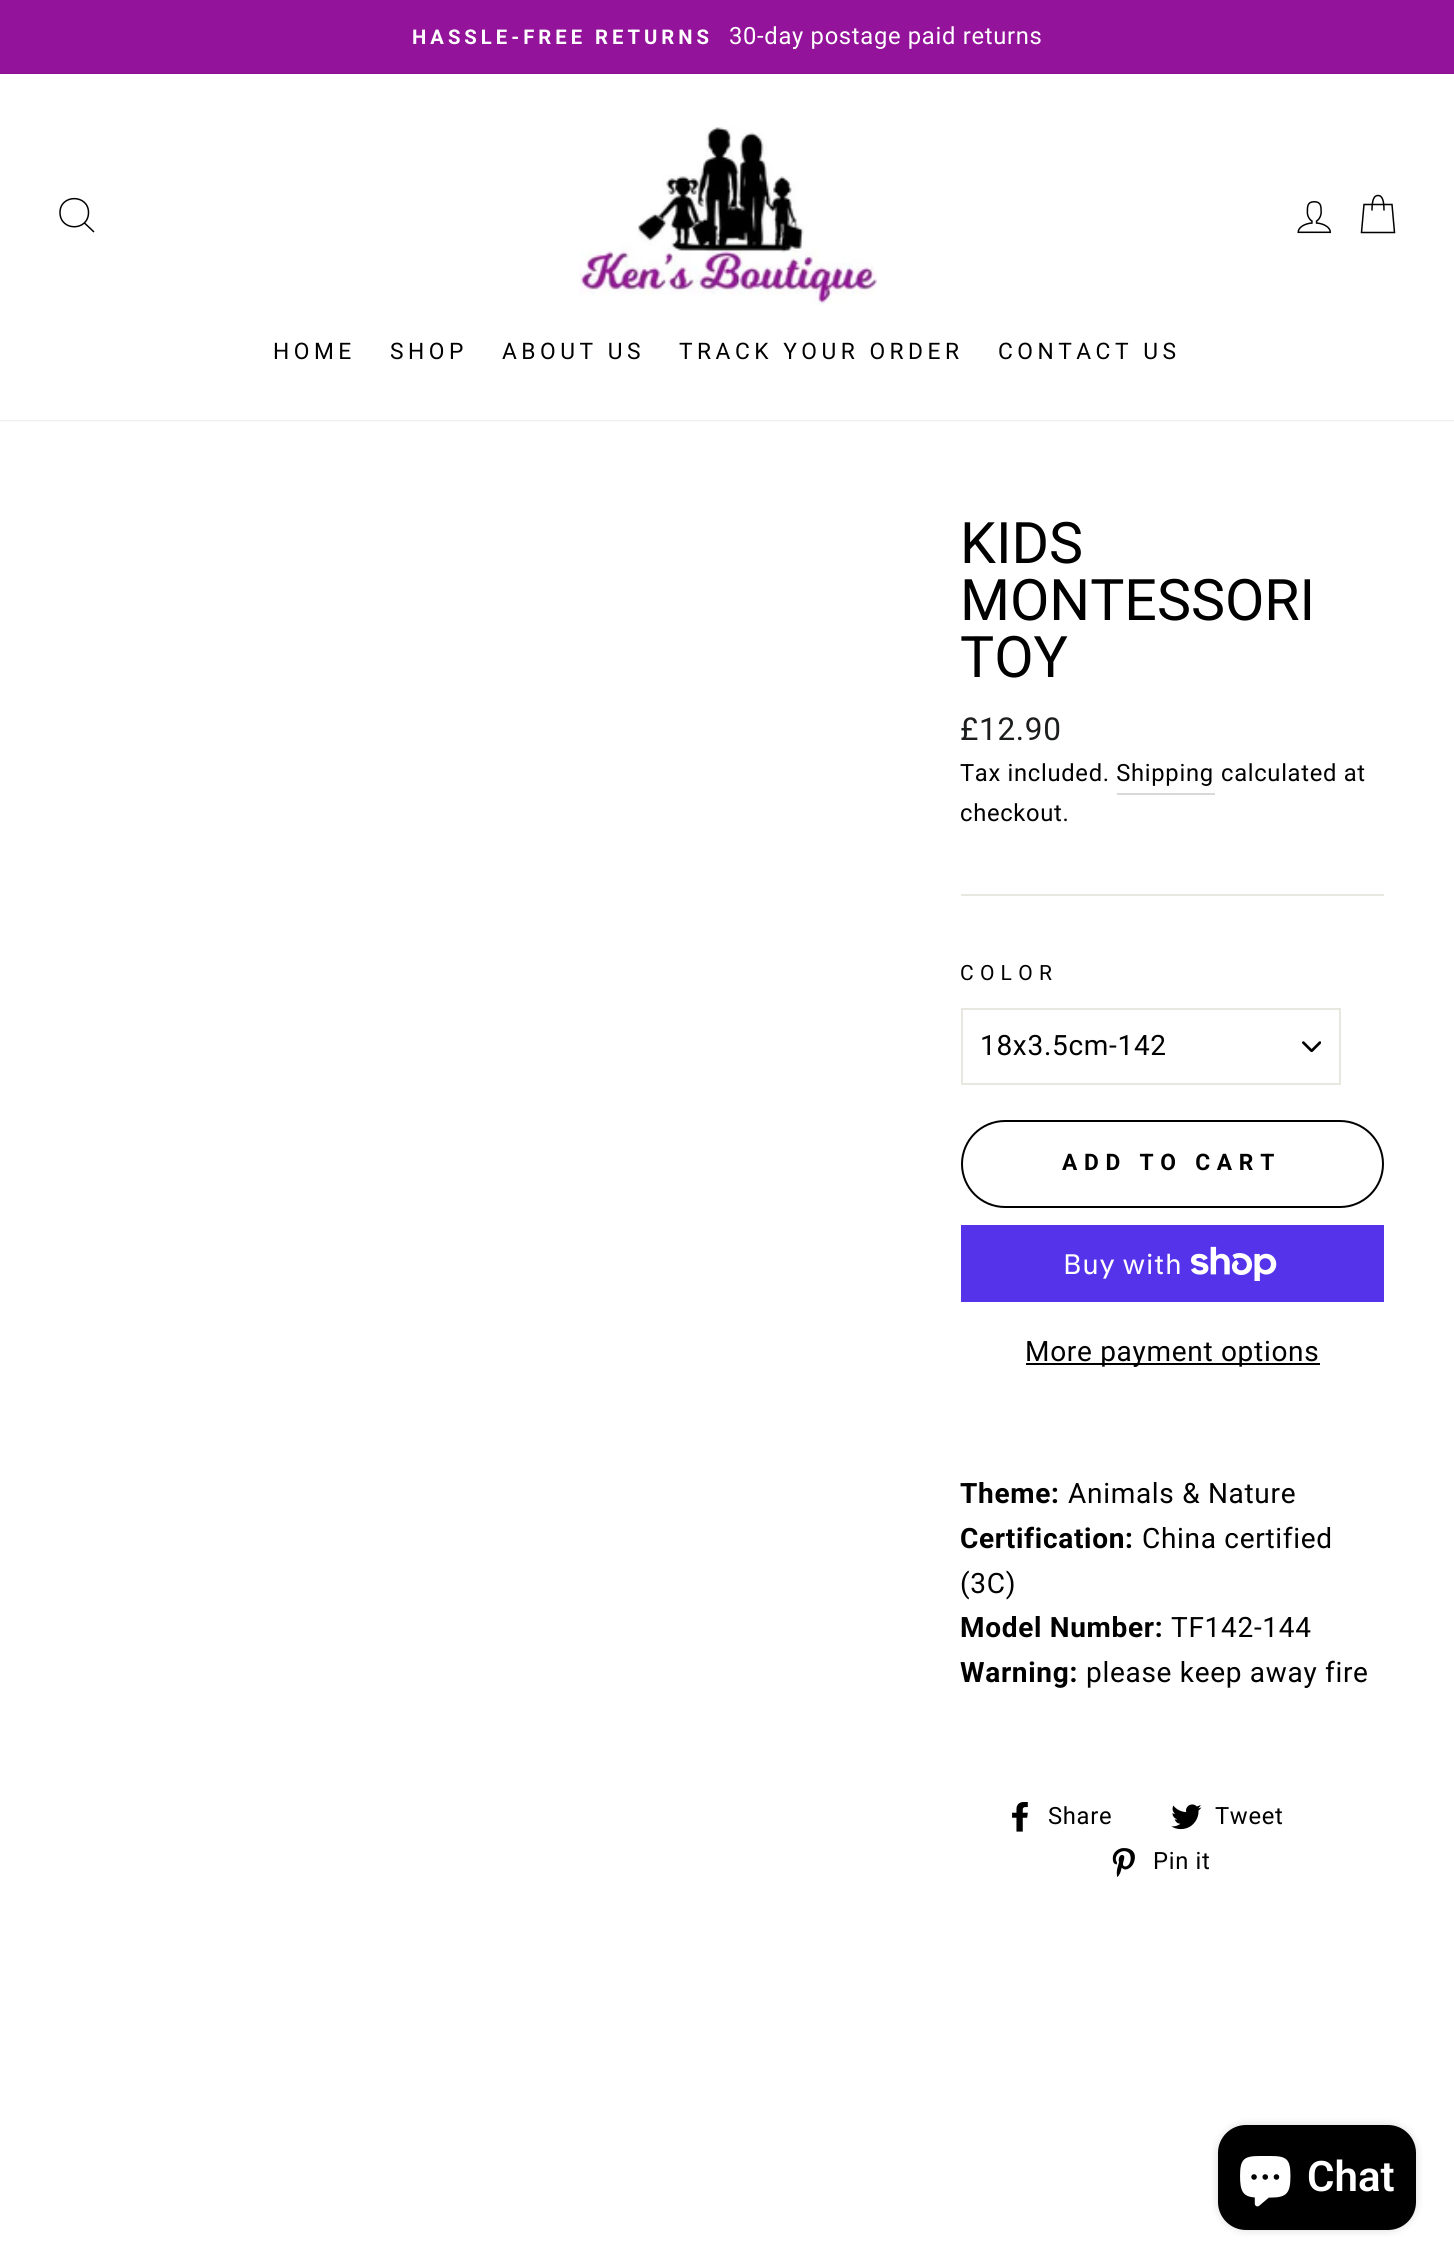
import math
import cairo

surface = cairo.ImageSurface(cairo.FORMAT_RGB24, 1454, 2265)
cr = cairo.Context(surface)
options = cairo.FontOptions()
options.set_hint_metrics(cairo.HINT_METRICS_OFF)
options.set_hint_style(cairo.HINT_STYLE_NONE)
cr.set_font_options(options)
cr.set_miter_limit(4)


def rgb(code):
    cr.set_source_rgb(*(v / 255 for v in bytes.fromhex(code[-6:])))


def tracked(x, y, s, letter, word):
    cr.move_to(x, y)
    for ch in s:
        cr.show_text(ch)
        cr.rel_move_to(letter + word * (ch == ' '), 0)


def rrect(x, y, w, h, r):
    cr.new_sub_path()
    for i, (u, v) in enumerate([(x + w - r, y + h - r), (x + r, y + h - r), (x + r, y + r), (x + w - r, y + r)]):
        cr.arc(u, v, r, i * math.pi / 2, (i + 1) * math.pi / 2)
    cr.close_path()


def soft_shadow(x, y, w, h, r, blur, alpha):
    cr.push_group_with_content(cairo.CONTENT_ALPHA)
    cr.set_operator(cairo.OPERATOR_SOURCE)
    for i in range(15, -16, -2):
        e = blur * i / 6
        if min(w, h) + 2 * e > 0:
            cr.set_source_rgba(0, 0, 0, alpha * math.erfc((i - 1) / 8.5) / 2)
            rrect(x - e, y - e, w + 2 * e, h + 2 * e, max(0, min(r + e + blur * .6, min(w, h) / 2 + e)))
            cr.fill()
    cr.mask(cr.pop_group())


def image(path, x, y, w, h):
    cr.save()
    cr.set_source_surface(cairo.ImageSurface.create_from_png(path), x, y)
    cr.rectangle(x, y, w, h)
    cr.fill()
    cr.restore()


rgb("#ffffff")
cr.paint()
rgb("#93139a")
cr.rectangle(0, 0, 1454, 74)
cr.fill()
cr.save()
cr.set_fill_rule(cairo.FILL_RULE_EVEN_ODD)
cr.new_path()
cr.move_to(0, 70)
cr.line_to(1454, 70)
cr.line_to(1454, 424)
cr.line_to(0, 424)
cr.close_path()
cr.move_to(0, 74)
cr.line_to(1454, 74)
cr.line_to(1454, 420)
cr.line_to(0, 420)
cr.close_path()
cr.clip()
rgb("#000000")
soft_shadow(0, 74, 1454, 346, 0, 1, 0.2)
cr.restore()
cr.new_path()
cr.move_to(88.5, 212.5)
cr.curve_to(88.5, 231.5, 60, 231.5, 60, 212.5)
cr.curve_to(60, 194, 88.5, 194, 88.5, 212.5)
cr.close_path()
cr.move_to(94, 232)
cr.line_to(84.5, 223)
rgb("#000000")
cr.set_line_width(1.5)
cr.stroke()
image("img/1.png", 579, 127, 298, 178)
image("img/2.png", 1297, 201, 35, 33)
cr.new_path()
cr.move_to(1372, 210.5)
cr.curve_to(1372, 198.5, 1374.5, 195.5, 1378, 195.5)
cr.curve_to(1381.5, 195.5, 1384, 198.5, 1384, 210.5)
cr.move_to(1364, 204.5)
cr.line_to(1392, 204.5)
cr.line_to(1394.5, 232.5)
cr.line_to(1361.5, 232.5)
cr.close_path()
cr.stroke()
rgb("#d9d9d9")
cr.rectangle(1117, 793, 98, 2)
cr.fill()
rgb("#e8e8e1")
cr.rectangle(961, 894, 423, 2)
cr.fill()
image("img/3.png", 1302, 1041, 19, 11)
cr.rectangle(962, 1009, 378, 75)
cr.set_line_width(2)
cr.stroke()
rrect(962, 1121, 421, 86, 43)
rgb("#000000")
cr.stroke()
rgb("#5433eb")
cr.rectangle(961, 1225, 423, 77)
cr.fill()
image("img/4.png", 1191, 1246, 86, 35)
rgb("#000000")
cr.rectangle(1026, 1363, 294, 2)
cr.fill()
image("img/5.png", 1012, 1802, 16, 30)
image("img/6.png", 1171, 1804, 31, 26)
image("img/7.png", 1112, 1848, 23, 29)
rgb("#000000")
soft_shadow(1218, 2125, 198, 105, 28, 4.5, 0.15)
rgb("#000000")
rrect(1218, 2125, 198, 105, 28)
cr.fill()
image("img/8.png", 1240, 2156, 51, 51)
cr.select_font_face("Roboto", cairo.FONT_SLANT_NORMAL, cairo.FONT_WEIGHT_BOLD)
cr.set_font_size(20.25)
rgb("#ffffff")
tracked(412, 44, "HASSLE-FREE RETURNS", 4, 0)
cr.select_font_face("Roboto")
cr.set_font_size(23.75)
tracked(729, 44, "30-day postage paid returns", 0.7, 0)
cr.set_font_size(22.75)
rgb("#000000")
for x, y, s in [
    (273, 359, "HOME"),
    (390, 359, "SHOP"),
    (502, 359, "ABOUT US"),
    (679, 359, "TRACK YOUR ORDER"),
    (998, 359, "CONTACT US"),
]:
    tracked(x, y, s, 4.5, 0)
cr.set_font_size(57.25)
for x, y, s in [
    (960, 563, "KIDS"),
    (960, 620, "MONTESSORI"),
    (960, 677, "TOY"),
]:
    cr.move_to(x, y)
    cr.show_text(s)
cr.set_font_size(31.5)
rgb("#1c1d1d")
tracked(960, 740, "£12.90", 0.7, 0)
cr.set_font_size(23.75)
rgb("#000000")
for x, y, s in [
    (960, 781, "Tax included. Shipping"),
    (1221, 781, "calculated at"),
    (960, 821, "checkout."),
]:
    tracked(x, y, s, 0.7, 0)
cr.set_font_size(21)
tracked(960, 980, "COLOR", 6.25, 0)
cr.set_font_size(28)
tracked(980, 1055, "18x3.5cm-142", 0.7, 0)
cr.select_font_face("Roboto", cairo.FONT_SLANT_NORMAL, cairo.FONT_WEIGHT_BOLD)
cr.set_font_size(22.75)
tracked(1062, 1170, "ADD TO CART", 6.75, 0)
cr.select_font_face("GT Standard")
cr.set_font_size(28)
rgb("#ffffff")
tracked(1063, 1274, "Buy with", 0.7, 0)
cr.select_font_face("Roboto")
rgb("#000000")
tracked(1025, 1361, "More payment options", 0.7, 0)
cr.select_font_face("Roboto", cairo.FONT_SLANT_NORMAL, cairo.FONT_WEIGHT_BOLD)
tracked(960, 1503, "Theme:", 0.7, 0)
cr.select_font_face("Roboto")
tracked(1068, 1503, "Animals & Nature", 0.7, 0)
cr.select_font_face("Roboto", cairo.FONT_SLANT_NORMAL, cairo.FONT_WEIGHT_BOLD)
tracked(960, 1548, "Certification:", 0.7, 0)
cr.select_font_face("Roboto")
tracked(1142, 1548, "China certified", 0.7, 0)
tracked(960, 1593, "(3C)", 0.7, 0)
cr.select_font_face("Roboto", cairo.FONT_SLANT_NORMAL, cairo.FONT_WEIGHT_BOLD)
tracked(960, 1637, "Model Number:", 0.7, 0)
cr.select_font_face("Roboto")
tracked(1171, 1637, "TF142-144", 0.7, 0)
cr.select_font_face("Roboto", cairo.FONT_SLANT_NORMAL, cairo.FONT_WEIGHT_BOLD)
tracked(960, 1682, "Warning:", 0.7, 0)
cr.select_font_face("Roboto")
tracked(1086, 1682, "please keep away fire", 0.7, 0)
cr.set_font_size(23.75)
for x, y, s in [
    (1048, 1824, "Share"),
    (1215, 1824, "Tweet"),
    (1153, 1869, "Pin it"),
]:
    tracked(x, y, s, 0.7, 0)
cr.select_font_face("Roboto SemiBold")
cr.set_font_size(42)
rgb("#ffffff")
cr.move_to(1307, 2191)
cr.show_text("Chat")
surface.write_to_png("page.png")
